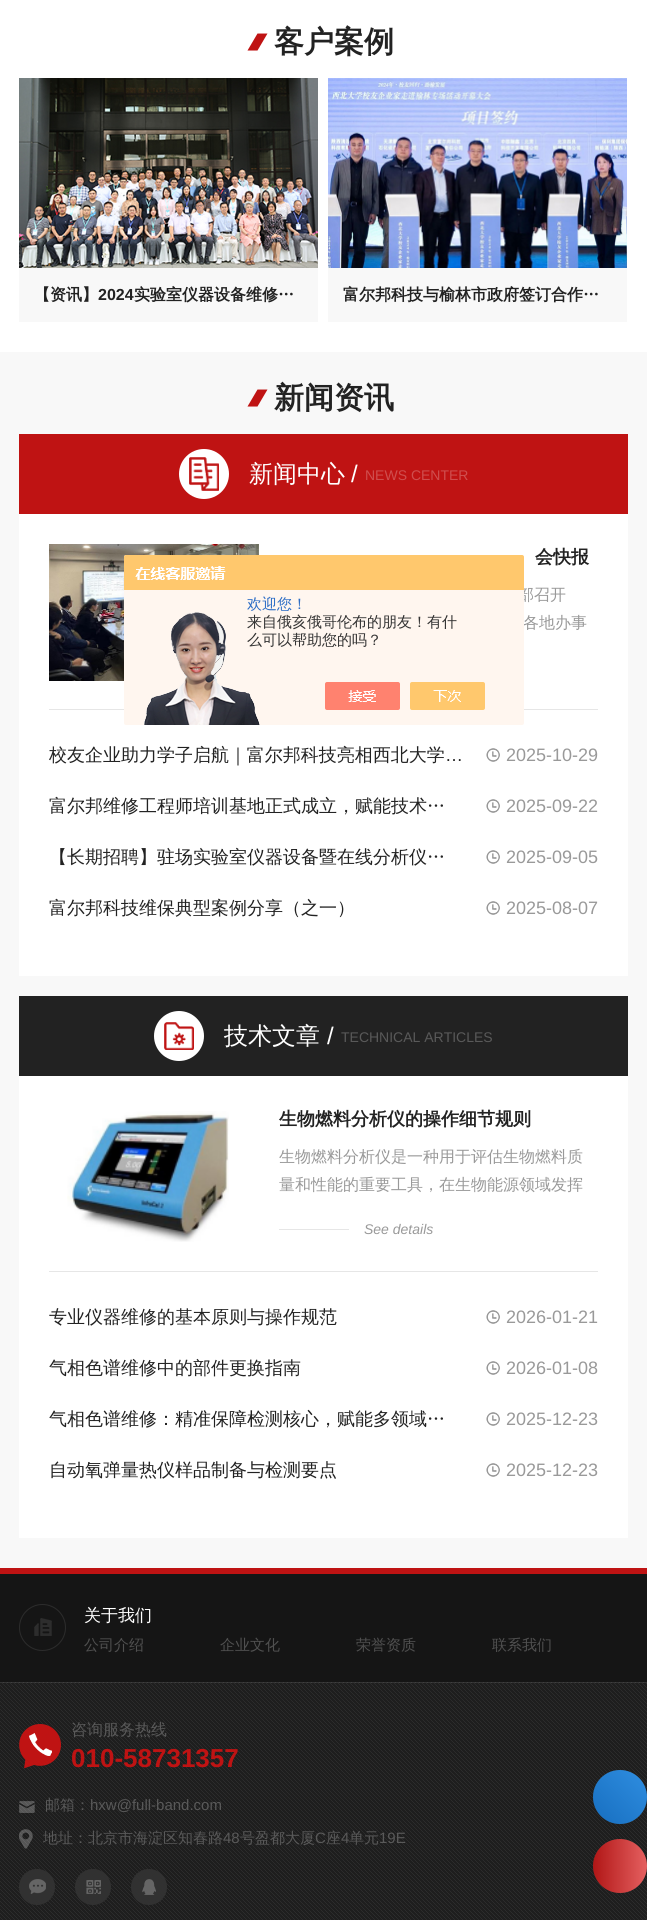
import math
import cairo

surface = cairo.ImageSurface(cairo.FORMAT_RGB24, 647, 1920)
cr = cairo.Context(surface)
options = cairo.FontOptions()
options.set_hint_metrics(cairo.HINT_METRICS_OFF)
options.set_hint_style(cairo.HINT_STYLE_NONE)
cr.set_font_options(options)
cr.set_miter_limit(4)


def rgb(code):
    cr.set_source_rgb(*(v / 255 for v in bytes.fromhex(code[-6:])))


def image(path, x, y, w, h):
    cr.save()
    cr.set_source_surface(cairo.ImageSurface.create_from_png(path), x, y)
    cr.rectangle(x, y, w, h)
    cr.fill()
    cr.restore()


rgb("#ffffff")
cr.paint()
rgb("#bf1313")
cr.new_path()
cr.move_to(257.5, 33.5)
cr.line_to(267.5, 33.5)
cr.line_to(257.5, 50.5)
cr.line_to(247.5, 50.5)
cr.close_path()
cr.fill()
image("img/1.png", 19, 78, 299, 190)
rgb("#f8f8f8")
cr.rectangle(19, 268, 299, 54)
cr.fill()
image("img/2.png", 328, 78, 299, 190)
cr.rectangle(328, 268, 299, 54)
cr.fill()
cr.rectangle(0, 352, 647, 1216)
cr.fill()
rgb("#bf1313")
cr.new_path()
cr.move_to(257.5, 389.5)
cr.line_to(267.5, 389.5)
cr.line_to(257.5, 406.5)
cr.line_to(247.5, 406.5)
cr.close_path()
cr.fill()
rgb("#ffffff")
cr.rectangle(19, 514, 609, 462)
cr.fill()
rgb("#bf1313")
cr.rectangle(19, 434, 609, 80)
cr.fill()
rgb("#ffffff")
cr.arc(204, 474, 25, 0, 2 * math.pi)
cr.fill()
image("img/3.png", 189, 457, 30, 34)
rgb("#e6e6e6")
cr.rectangle(49, 709, 549, 1)
cr.fill()
image("img/4.png", 49, 544, 210, 137)
image("img/5.png", 486, 748, 14, 14)
image("img/5.png", 486, 799, 14, 14)
image("img/5.png", 486, 850, 14, 14)
image("img/5.png", 486, 901, 14, 14)
rgb("#ffffff")
cr.rectangle(19, 1076, 609, 462)
cr.fill()
rgb("#222222")
cr.rectangle(19, 996, 609, 80)
cr.fill()
rgb("#ffffff")
cr.arc(179, 1036, 25, 0, 2 * math.pi)
cr.fill()
image("img/6.png", 164, 1022, 30, 28)
rgb("#e6e6e6")
cr.rectangle(49, 1271, 549, 1)
cr.fill()
image("img/7.png", 67, 1111, 162, 131)
cr.rectangle(279, 1229, 70, 1)
cr.fill()
image("img/5.png", 486, 1310, 14, 14)
image("img/5.png", 486, 1361, 14, 14)
image("img/5.png", 486, 1412, 14, 14)
image("img/5.png", 486, 1463, 14, 14)
rgb("#151515")
cr.rectangle(0, 1574, 647, 108)
cr.fill()
rgb("#bf1313")
cr.rectangle(0, 1568, 647, 6)
cr.fill()
image("img/9.png", 34, 1618, 18, 18)
cr.arc(42.5, 1627.5, 23, 0, 2 * math.pi)
rgb("#2c2c2c")
cr.set_line_width(1)
cr.stroke()
rgb("#1e1e1e")
cr.rectangle(0, 1682, 647, 238)
cr.fill()
image("img/10.png", 0, 1682, 647, 238)
cr.set_source_rgba(1, 1, 1, 0.1)
cr.rectangle(0, 1682, 647, 1)
cr.fill()
image("img/11.png", 19, 1724, 42, 45)
image("img/12.png", 19, 1801, 16, 12)
image("img/13.png", 19, 1829, 14, 20)
rgb("#313131")
cr.arc(37, 1887, 18, 0, 2 * math.pi)
cr.fill()
image("img/14.png", 29, 1879, 17, 15)
cr.arc(93, 1887, 18, 0, 2 * math.pi)
cr.fill()
image("img/15.png", 86, 1880, 15, 14)
cr.arc(149, 1887, 18, 0, 2 * math.pi)
cr.fill()
image("img/16.png", 142, 1879, 14, 16)
cr.set_source_rgba(0.208, 0.208, 0.208, 0.9)
cr.arc(620, 1797, 27, 0, 2 * math.pi)
cr.fill()
gradient = cairo.LinearGradient(593, 1824, 647, 1770)
gradient.add_color_stop_rgba(0, 0.078, 0.459, 0.812, 0.9)
gradient.add_color_stop_rgba(1, 0.184, 0.596, 0.957, 0.9)
cr.set_source(gradient)
cr.arc(620, 1797, 27, 0, 2 * math.pi)
cr.fill()
cr.set_source_rgba(0.208, 0.208, 0.208, 0.9)
cr.arc(620, 1866, 27, 0, 2 * math.pi)
cr.fill()
gradient = cairo.LinearGradient(593, 1866, 647, 1866)
gradient.add_color_stop_rgba(0, 0.749, 0.075, 0.075, 0.9)
gradient.add_color_stop_rgba(1, 0.976, 0.396, 0.396, 0.9)
cr.set_source(gradient)
cr.arc(620, 1866, 27, 0, 2 * math.pi)
cr.fill()
cr.select_font_face("WenQuanYi Zen Hei", cairo.FONT_SLANT_NORMAL, cairo.FONT_WEIGHT_BOLD)
cr.set_font_size(30)
rgb("#222222")
cr.move_to(274, 52)
cr.show_text("客户案例")
cr.set_font_size(16)
cr.move_to(34, 300)
cr.show_text("【资讯】")
cr.select_font_face("Liberation Sans", cairo.FONT_SLANT_NORMAL, cairo.FONT_WEIGHT_BOLD)
cr.move_to(98, 300)
cr.show_text("2024")
cr.select_font_face("WenQuanYi Zen Hei", cairo.FONT_SLANT_NORMAL, cairo.FONT_WEIGHT_BOLD)
cr.move_to(134, 300)
cr.show_text("实验室仪器设备维修…")
cr.move_to(343, 300)
cr.show_text("富尔邦科技与榆林市政府签订合作…")
cr.set_font_size(30)
cr.move_to(274, 408)
cr.show_text("新闻资讯")
cr.select_font_face("WenQuanYi Zen Hei Medium")
cr.set_font_size(24)
rgb("#ffffff")
cr.move_to(249, 482)
cr.show_text("新闻中心")
cr.select_font_face("Liberation Sans")
cr.move_to(351, 482)
cr.show_text("/")
cr.set_font_size(14)
rgb("#cf4e4e")
cr.move_to(365, 480)
cr.show_text("NEWS CENTER")
cr.select_font_face("WenQuanYi Zen Hei", cairo.FONT_SLANT_NORMAL, cairo.FONT_WEIGHT_BOLD)
cr.set_font_size(18)
rgb("#222222")
cr.move_to(535, 563)
cr.show_text("会快报")
cr.select_font_face("WenQuanYi Zen Hei Medium")
cr.set_font_size(16)
rgb("#999999")
cr.move_to(518, 600)
cr.show_text("部召开")
cr.move_to(523, 628)
cr.show_text("各地办事")
cr.set_font_size(18)
rgb("#222222")
cr.move_to(49, 761)
cr.show_text("校友企业助力学子启航｜富尔邦科技亮相西北大学")
cr.select_font_face("Liberation Sans")
cr.move_to(445, 761)
cr.show_text("…")
rgb("#999999")
cr.move_to(506, 761)
cr.show_text("2025-10-29")
cr.select_font_face("WenQuanYi Zen Hei Medium")
rgb("#222222")
cr.move_to(49, 812)
cr.show_text("富尔邦维修工程师培训基地正式成立，赋能技术…")
cr.select_font_face("Liberation Sans")
rgb("#999999")
cr.move_to(506, 812)
cr.show_text("2025-09-22")
cr.select_font_face("WenQuanYi Zen Hei Medium")
rgb("#222222")
cr.move_to(49, 863)
cr.show_text("【长期招聘】驻场实验室仪器设备暨在线分析仪…")
cr.select_font_face("Liberation Sans")
rgb("#999999")
cr.move_to(506, 863)
cr.show_text("2025-09-05")
cr.select_font_face("WenQuanYi Zen Hei Medium")
rgb("#222222")
cr.move_to(49, 914)
cr.show_text("富尔邦科技维保典型案例分享（之一）")
cr.select_font_face("Liberation Sans")
rgb("#999999")
cr.move_to(506, 914)
cr.show_text("2025-08-07")
cr.select_font_face("WenQuanYi Zen Hei Medium")
cr.set_font_size(24)
rgb("#ffffff")
cr.move_to(224, 1044)
cr.show_text("技术文章")
cr.select_font_face("Liberation Sans")
cr.move_to(327, 1044)
cr.show_text("/")
cr.set_font_size(14)
rgb("#595959")
cr.move_to(341, 1042)
cr.show_text("TECHNICAL ARTICLES")
cr.select_font_face("WenQuanYi Zen Hei", cairo.FONT_SLANT_NORMAL, cairo.FONT_WEIGHT_BOLD)
cr.set_font_size(18)
rgb("#222222")
cr.move_to(279, 1125)
cr.show_text("生物燃料分析仪的操作细节规则")
cr.select_font_face("WenQuanYi Zen Hei Medium")
cr.set_font_size(16)
rgb("#999999")
cr.move_to(279, 1162)
cr.show_text("生物燃料分析仪是一种用于评估生物燃料质")
cr.move_to(279, 1190)
cr.show_text("量和性能的重要工具，在生物能源领域发挥")
cr.select_font_face("Liberation Sans", cairo.FONT_SLANT_ITALIC)
cr.set_font_size(14)
cr.move_to(364, 1234)
cr.show_text("See details")
cr.select_font_face("WenQuanYi Zen Hei Medium")
cr.set_font_size(18)
rgb("#222222")
cr.move_to(49, 1323)
cr.show_text("专业仪器维修的基本原则与操作规范")
cr.select_font_face("Liberation Sans")
rgb("#999999")
cr.move_to(506, 1323)
cr.show_text("2026-01-21")
cr.select_font_face("WenQuanYi Zen Hei Medium")
rgb("#222222")
cr.move_to(49, 1374)
cr.show_text("气相色谱维修中的部件更换指南")
cr.select_font_face("Liberation Sans")
rgb("#999999")
cr.move_to(506, 1374)
cr.show_text("2026-01-08")
cr.select_font_face("WenQuanYi Zen Hei Medium")
rgb("#222222")
cr.move_to(49, 1425)
cr.show_text("气相色谱维修：精准保障检测核心，赋能多领域…")
cr.select_font_face("Liberation Sans")
rgb("#999999")
cr.move_to(506, 1425)
cr.show_text("2025-12-23")
cr.select_font_face("WenQuanYi Zen Hei Medium")
rgb("#222222")
cr.move_to(49, 1476)
cr.show_text("自动氧弹量热仪样品制备与检测要点")
cr.select_font_face("Liberation Sans")
rgb("#999999")
cr.move_to(506, 1476)
cr.show_text("2025-12-23")
image("img/8.png", 124, 555, 400, 170)
cr.select_font_face("WenQuanYi Zen Hei Medium")
cr.set_font_size(15)
rgb("#2e6ec6")
cr.move_to(247, 609)
cr.show_text("欢迎您！")
rgb("#333333")
cr.move_to(247, 627)
cr.show_text("来自俄亥俄哥伦布的朋友！有什")
cr.move_to(247, 645)
cr.show_text("么可以帮助您的吗？")
cr.set_font_size(17)
rgb("#ffffff")
cr.move_to(84, 1621)
cr.show_text("关于我们")
cr.set_font_size(15)
rgb("#505050")
for x, y, s in [
    (84, 1650, "公司介绍"),
    (220, 1650, "企业文化"),
    (356, 1650, "荣誉资质"),
    (492, 1650, "联系我们"),
]:
    cr.move_to(x, y)
    cr.show_text(s)
cr.set_font_size(16)
rgb("#595959")
cr.move_to(71, 1735)
cr.show_text("咨询服务热线")
cr.select_font_face("Liberation Sans", cairo.FONT_SLANT_NORMAL, cairo.FONT_WEIGHT_BOLD)
cr.set_font_size(26)
rgb("#bf1313")
cr.move_to(71, 1767)
cr.show_text("010-58731357")
cr.select_font_face("WenQuanYi Zen Hei Medium")
cr.set_font_size(15)
rgb("#595959")
cr.move_to(45, 1810)
cr.show_text("邮箱：")
cr.select_font_face("Liberation Sans")
cr.move_to(90, 1810)
cr.show_text("hxw@full-band.com")
cr.select_font_face("WenQuanYi Zen Hei Medium")
cr.move_to(43, 1843)
cr.show_text("地址：北京市海淀区知春路")
cr.select_font_face("Liberation Sans")
cr.move_to(223, 1843)
cr.show_text("48")
cr.select_font_face("WenQuanYi Zen Hei Medium")
cr.move_to(240, 1843)
cr.show_text("号盈都大厦")
cr.select_font_face("Liberation Sans")
cr.move_to(315, 1843)
cr.show_text("C")
cr.select_font_face("WenQuanYi Zen Hei Medium")
cr.move_to(326, 1843)
cr.show_text("座")
cr.select_font_face("Liberation Sans")
cr.move_to(341, 1843)
cr.show_text("4")
cr.select_font_face("WenQuanYi Zen Hei Medium")
cr.move_to(349, 1843)
cr.show_text("单元")
cr.select_font_face("Liberation Sans")
cr.move_to(379, 1843)
cr.show_text("19E")
surface.write_to_png("page.png")
